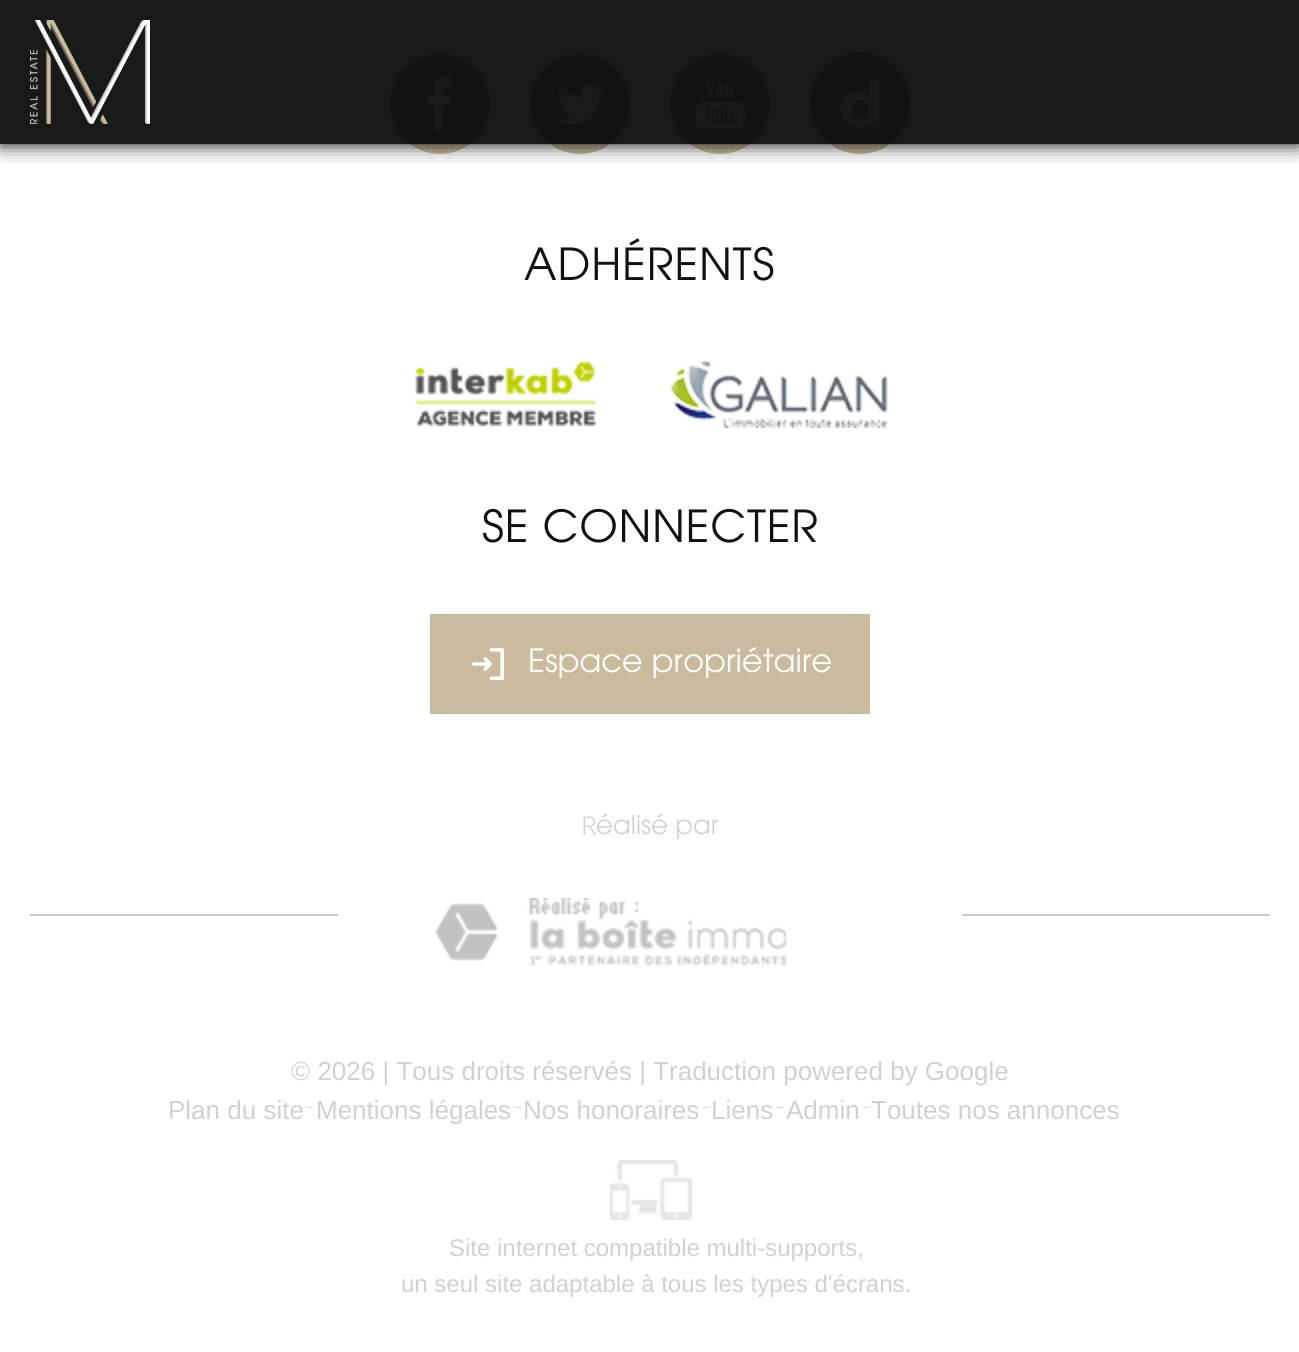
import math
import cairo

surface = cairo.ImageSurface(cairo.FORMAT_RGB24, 1299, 1352)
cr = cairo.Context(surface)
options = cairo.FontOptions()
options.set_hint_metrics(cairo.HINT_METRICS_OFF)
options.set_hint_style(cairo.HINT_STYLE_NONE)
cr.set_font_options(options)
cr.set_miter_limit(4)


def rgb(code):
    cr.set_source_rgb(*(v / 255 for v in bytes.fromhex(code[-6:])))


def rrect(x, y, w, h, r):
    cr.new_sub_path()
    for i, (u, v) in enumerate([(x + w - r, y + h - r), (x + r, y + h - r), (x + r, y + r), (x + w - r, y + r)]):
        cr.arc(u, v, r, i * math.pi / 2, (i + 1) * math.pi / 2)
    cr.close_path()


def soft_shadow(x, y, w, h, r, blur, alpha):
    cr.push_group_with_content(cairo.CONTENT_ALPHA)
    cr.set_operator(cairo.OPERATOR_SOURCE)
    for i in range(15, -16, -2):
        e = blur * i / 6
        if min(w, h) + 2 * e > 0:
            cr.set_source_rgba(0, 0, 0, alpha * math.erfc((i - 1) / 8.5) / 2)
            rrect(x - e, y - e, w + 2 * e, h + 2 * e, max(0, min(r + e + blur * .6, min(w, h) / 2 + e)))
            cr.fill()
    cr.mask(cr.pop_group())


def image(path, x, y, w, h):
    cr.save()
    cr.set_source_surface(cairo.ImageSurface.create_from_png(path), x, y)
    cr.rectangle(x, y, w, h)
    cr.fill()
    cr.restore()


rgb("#ffffff")
cr.paint()
rgb("#cabb9f")
cr.arc(440, 104, 50, 0, 2 * math.pi)
cr.fill()
rgb("#ffffff")
cr.new_path()
cr.move_to(452, 96)
cr.line_to(443, 96)
cr.curve_to(443, 85, 443, 86, 452, 86)
cr.line_to(452, 77)
cr.curve_to(436, 77, 434, 80, 434, 96)
cr.line_to(428, 96)
cr.line_to(428, 105)
cr.line_to(434, 105)
cr.line_to(434, 130)
cr.line_to(443, 130)
cr.line_to(443, 105)
cr.line_to(451, 105)
cr.close_path()
cr.fill()
rgb("#cabb9f")
cr.arc(580, 104, 50, 0, 2 * math.pi)
cr.fill()
image("img/2.png", 558, 83, 47, 42)
cr.arc(720, 104, 50, 0, 2 * math.pi)
cr.fill()
image("img/3.png", 695, 79, 51, 51)
rrect(810, 52, 100, 102, 50)
cr.fill()
rgb("#ffffff")
cr.new_path()
cr.move_to(869, 80)
cr.line_to(869, 96)
cr.line_to(864, 92)
cr.curve_to(859, 90, 852, 92, 848, 95)
cr.curve_to(830, 109, 849, 136, 866, 126)
cr.line_to(869, 123)
cr.line_to(869, 127)
cr.line_to(879, 127)
cr.line_to(879, 78)
cr.close_path()
cr.move_to(860, 118)
cr.curve_to(849, 118, 848, 100, 860, 100)
cr.curve_to(872, 100, 872, 118, 860, 118)
cr.close_path()
cr.fill()
cr.save()
cr.rectangle(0, 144, 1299, 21)
cr.clip()
rgb("#000000")
soft_shadow(0, 0, 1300, 144, 0, 10, 1)
cr.restore()
cr.set_source_rgba(0, 0, 0, 0.9)
cr.rectangle(0, 0, 1299, 144)
cr.fill()
image("img/1.png", 30, 20, 120, 104)
image("img/4.png", 524, 238, 250, 43)
image("img/5.png", 415, 361, 182, 66)
image("img/6.png", 669, 360, 219, 68)
image("img/7.png", 483, 508, 334, 35)
rgb("#cabb9f")
cr.rectangle(430, 614, 440, 100)
cr.fill()
image("img/8.png", 472, 648, 32, 33)
image("img/9.png", 530, 647, 301, 32)
image("img/10.png", 597, 813, 122, 26)
image("img/11.png", 435, 898, 352, 68)
for x, y, w, h, color in [
    (30, 914, 308, 2, "#cacaca"),
    (962, 914, 308, 2, "#cacaca"),
    (307, 1107, 6, 1, "#d1d1d1"),
    (515, 1107, 6, 1, "#d1d1d1"),
    (703, 1107, 6, 1, "#d1d1d1"),
    (777, 1107, 6, 1, "#d1d1d1"),
    (863, 1107, 6, 1, "#d1d1d1"),
]:
    rgb(color)
    cr.rectangle(x, y, w, h)
    cr.fill()
image("img/12.png", 610, 1160, 82, 60)
cr.select_font_face("Noto Sans Light")
cr.set_font_size(26)
cr.move_to(581, 835)
cr.show_text("R")
cr.select_font_face("Liberation Sans")
for x, y, s in [
    (291, 1080, "© 2026 | Tous droits réservés | Traduction powered by Google"),
    (168, 1119, "Plan du site"),
    (316, 1119, "Mentions légales"),
    (523, 1119, "Nos honoraires"),
    (711, 1119, "Liens"),
    (786, 1119, "Admin"),
    (871, 1119, "Toutes nos annonces"),
]:
    cr.move_to(x, y)
    cr.show_text(s)
cr.set_font_size(24)
cr.move_to(449, 1256)
cr.show_text("Site internet compatible multi-supports,")
cr.move_to(401, 1292)
cr.show_text("un seul site adaptable à tous les types d'écrans.")
surface.write_to_png("page.png")
